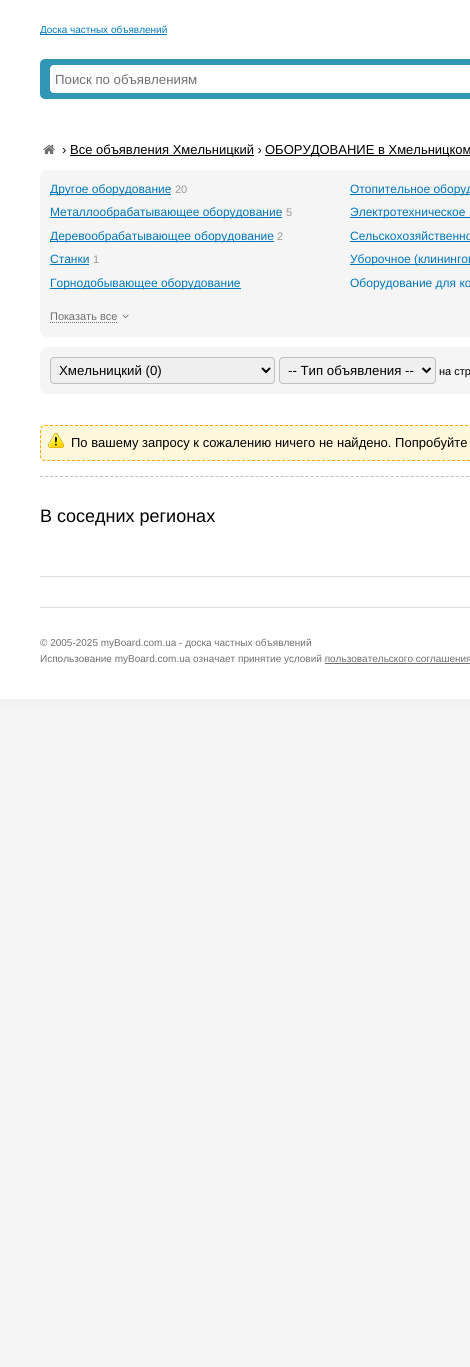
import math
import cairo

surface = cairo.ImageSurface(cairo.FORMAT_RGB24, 470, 1367)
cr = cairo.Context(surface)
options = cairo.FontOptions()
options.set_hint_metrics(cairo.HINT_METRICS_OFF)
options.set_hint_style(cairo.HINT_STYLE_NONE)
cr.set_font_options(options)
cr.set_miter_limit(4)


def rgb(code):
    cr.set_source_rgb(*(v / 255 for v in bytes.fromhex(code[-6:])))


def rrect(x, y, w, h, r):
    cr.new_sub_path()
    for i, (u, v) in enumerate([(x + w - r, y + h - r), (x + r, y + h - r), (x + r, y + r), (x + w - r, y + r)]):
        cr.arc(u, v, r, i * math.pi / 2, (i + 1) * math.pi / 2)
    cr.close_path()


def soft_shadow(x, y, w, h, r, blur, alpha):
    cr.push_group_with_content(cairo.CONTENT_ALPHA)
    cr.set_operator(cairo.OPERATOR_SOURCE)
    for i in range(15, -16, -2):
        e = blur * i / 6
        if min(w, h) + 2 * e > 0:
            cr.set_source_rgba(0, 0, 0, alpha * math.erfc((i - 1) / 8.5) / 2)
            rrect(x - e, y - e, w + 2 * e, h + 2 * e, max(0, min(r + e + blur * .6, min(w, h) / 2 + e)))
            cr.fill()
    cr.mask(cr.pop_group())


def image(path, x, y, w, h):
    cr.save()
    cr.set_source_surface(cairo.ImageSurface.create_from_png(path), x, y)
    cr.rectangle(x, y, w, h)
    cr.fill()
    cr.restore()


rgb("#f5f5f5")
cr.paint()
rgb("#e8e8e8")
soft_shadow(0, 0, 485, 699, 0, 5, 1)
rgb("#ffffff")
cr.rectangle(0, 0, 470, 699)
cr.fill()
rgb("#0077bb")
cr.rectangle(40, 34, 127, 1)
cr.fill()
rgb("#2f96b4")
rrect(40, 59, 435, 40, 5)
cr.fill()
rgb("#ffffff")
cr.new_path()
cr.move_to(54, 65.5)
cr.line_to(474.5, 65.5)
cr.line_to(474.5, 92.5)
cr.line_to(54, 92.5)
cr.curve_to(52, 92.5, 50.5, 91, 50.5, 89)
cr.line_to(50.5, 69)
cr.curve_to(50.5, 67, 52, 65.5, 54, 65.5)
cr.close_path()
cr.fill_preserve()
cr.set_line_width(1)
cr.stroke()
image("img/1.png", 43, 144, 12, 11)
rgb("#000000")
cr.rectangle(70, 155, 184, 1)
cr.fill()
cr.rectangle(265, 155, 205, 1)
cr.fill()
rgb("#f5f5f5")
rrect(40, 170, 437, 167, 7)
cr.fill()
for x, y, w, h, color in [
    (50, 194, 121, 1, "#0077bb"),
    (350, 194, 120, 1, "#0077bb"),
    (50, 217, 232, 1, "#0077bb"),
    (350, 217, 120, 1, "#0077bb"),
    (50, 241, 224, 1, "#0077bb"),
    (350, 241, 120, 1, "#0077bb"),
    (50, 264, 39, 1, "#0077bb"),
    (350, 264, 120, 1, "#0077bb"),
    (50, 288, 191, 1, "#0077bb"),
]:
    rgb(color)
    cr.rectangle(x, y, w, h)
    cr.fill()
cr.new_path()
cr.move_to(50, 322.5)
cr.line_to(117, 322.5)
rgb("#707070")
cr.set_dash([1, 1])
cr.stroke()
image("img/2.png", 122, 314, 7, 5)
rgb("#f5f5f5")
rrect(40, 347, 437, 47, 7)
cr.fill()
rgb("#efefef")
rrect(50.5, 357.5, 224, 26, 3.5)
cr.fill_preserve()
rgb("#c0c0c0")
cr.set_dash([])
cr.stroke()
cr.new_path()
cr.move_to(262, 368)
cr.line_to(266, 372)
cr.line_to(270, 368)
rgb("#000000")
cr.set_line_width(2)
cr.stroke()
rgb("#efefef")
rrect(279.5, 357.5, 156, 26, 3.5)
cr.fill_preserve()
rgb("#c0c0c0")
cr.set_line_width(1)
cr.stroke()
cr.new_path()
cr.move_to(422.5, 368)
cr.line_to(426.5, 372)
cr.line_to(430.5, 368)
rgb("#000000")
cr.set_line_width(2)
cr.stroke()
rgb("#fff8dc")
rrect(40, 425, 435, 36, 5)
cr.fill()
image("img/3.png", 48, 433, 16, 15)
cr.new_path()
cr.move_to(45, 425.5)
cr.line_to(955, 425.5)
cr.curve_to(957.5, 425.5, 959.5, 427.5, 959.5, 430)
cr.line_to(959.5, 456)
cr.curve_to(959.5, 458.5, 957.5, 460.5, 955, 460.5)
cr.line_to(45, 460.5)
cr.curve_to(42.5, 460.5, 40.5, 458.5, 40.5, 456)
cr.line_to(40.5, 430)
cr.curve_to(40.5, 427.5, 42.5, 425.5, 45, 425.5)
cr.close_path()
rgb("#ffa500")
cr.set_line_width(1)
cr.set_dash([3, 2])
cr.stroke()
cr.new_path()
cr.move_to(40, 476.5)
cr.line_to(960, 476.5)
rgb("#c0c0c0")
cr.set_dash([3, 2.01])
cr.stroke()
for x, y, w, h, color in [
    (40, 576, 430, 1, "#dddddd"),
    (40, 607, 430, 1, "#dddddd"),
    (325, 663, 145, 1, "#707070"),
]:
    rgb(color)
    cr.rectangle(x, y, w, h)
    cr.fill()
cr.select_font_face("Liberation Sans")
cr.set_font_size(10)
rgb("#0077bb")
cr.move_to(40, 33)
cr.show_text("Доска частных объявлений")
cr.set_font_size(13.25)
rgb("#707070")
cr.move_to(55, 84)
cr.show_text("Поиск по объявлениям")
cr.set_font_size(13)
rgb("#000000")
for x, y, s in [
    (62, 154, "›"),
    (70, 154, "Все объявления Хмельницкий ›"),
    (265, 154, "ОБОРУДОВАНИЕ в Хмельницком"),
]:
    cr.move_to(x, y)
    cr.show_text(s)
cr.set_font_size(12)
rgb("#0077bb")
cr.move_to(50, 193)
cr.show_text("Другое оборудование")
cr.set_font_size(11)
rgb("#999999")
cr.move_to(175, 193)
cr.show_text("20")
cr.set_font_size(12)
rgb("#0077bb")
cr.move_to(350, 193)
cr.show_text("Отопительное оборуд")
cr.move_to(50, 216)
cr.show_text("Металлообрабатывающее оборудование")
cr.set_font_size(11)
rgb("#999999")
cr.move_to(286, 216)
cr.show_text("5")
cr.set_font_size(12)
rgb("#0077bb")
cr.move_to(350, 216)
cr.show_text("Электротехническое")
cr.move_to(50, 240)
cr.show_text("Деревообрабатывающее оборудование")
cr.set_font_size(11)
rgb("#999999")
cr.move_to(277, 240)
cr.show_text("2")
cr.set_font_size(12)
rgb("#0077bb")
cr.move_to(350, 240)
cr.show_text("Сельскохозяйственно")
cr.move_to(50, 263)
cr.show_text("Станки")
cr.set_font_size(11)
rgb("#999999")
cr.move_to(93, 263)
cr.show_text("1")
cr.set_font_size(12)
rgb("#0077bb")
for x, y, s in [
    (350, 263, "Уборочное (клинингов"),
    (50, 287, "Горнодобывающее оборудование"),
    (350, 287, "Оборудование для ко"),
]:
    cr.move_to(x, y)
    cr.show_text(s)
cr.set_font_size(11)
rgb("#707070")
cr.move_to(50, 320)
cr.show_text("Показать все")
cr.set_font_size(13.25)
rgb("#000000")
cr.move_to(59, 375)
cr.show_text("Хмельницкий (0)")
cr.move_to(288, 375)
cr.show_text("-- Тип объявления --")
cr.set_font_size(11)
cr.move_to(439, 375)
cr.show_text("на стр")
cr.set_font_size(13)
cr.move_to(71, 447)
cr.show_text("По вашему запросу к сожалению ничего не найдено. Попробуйте")
cr.set_font_size(18)
cr.move_to(40, 522)
cr.show_text("В соседних регионах")
cr.set_font_size(10)
rgb("#707070")
cr.move_to(40, 646)
cr.show_text("© 2005-2025 myBoard.com.ua - доска частных объявлений")
cr.move_to(40, 662)
cr.show_text("Использование myBoard.com.ua означает принятие условий пользовательского соглашения")
surface.write_to_png("page.png")
